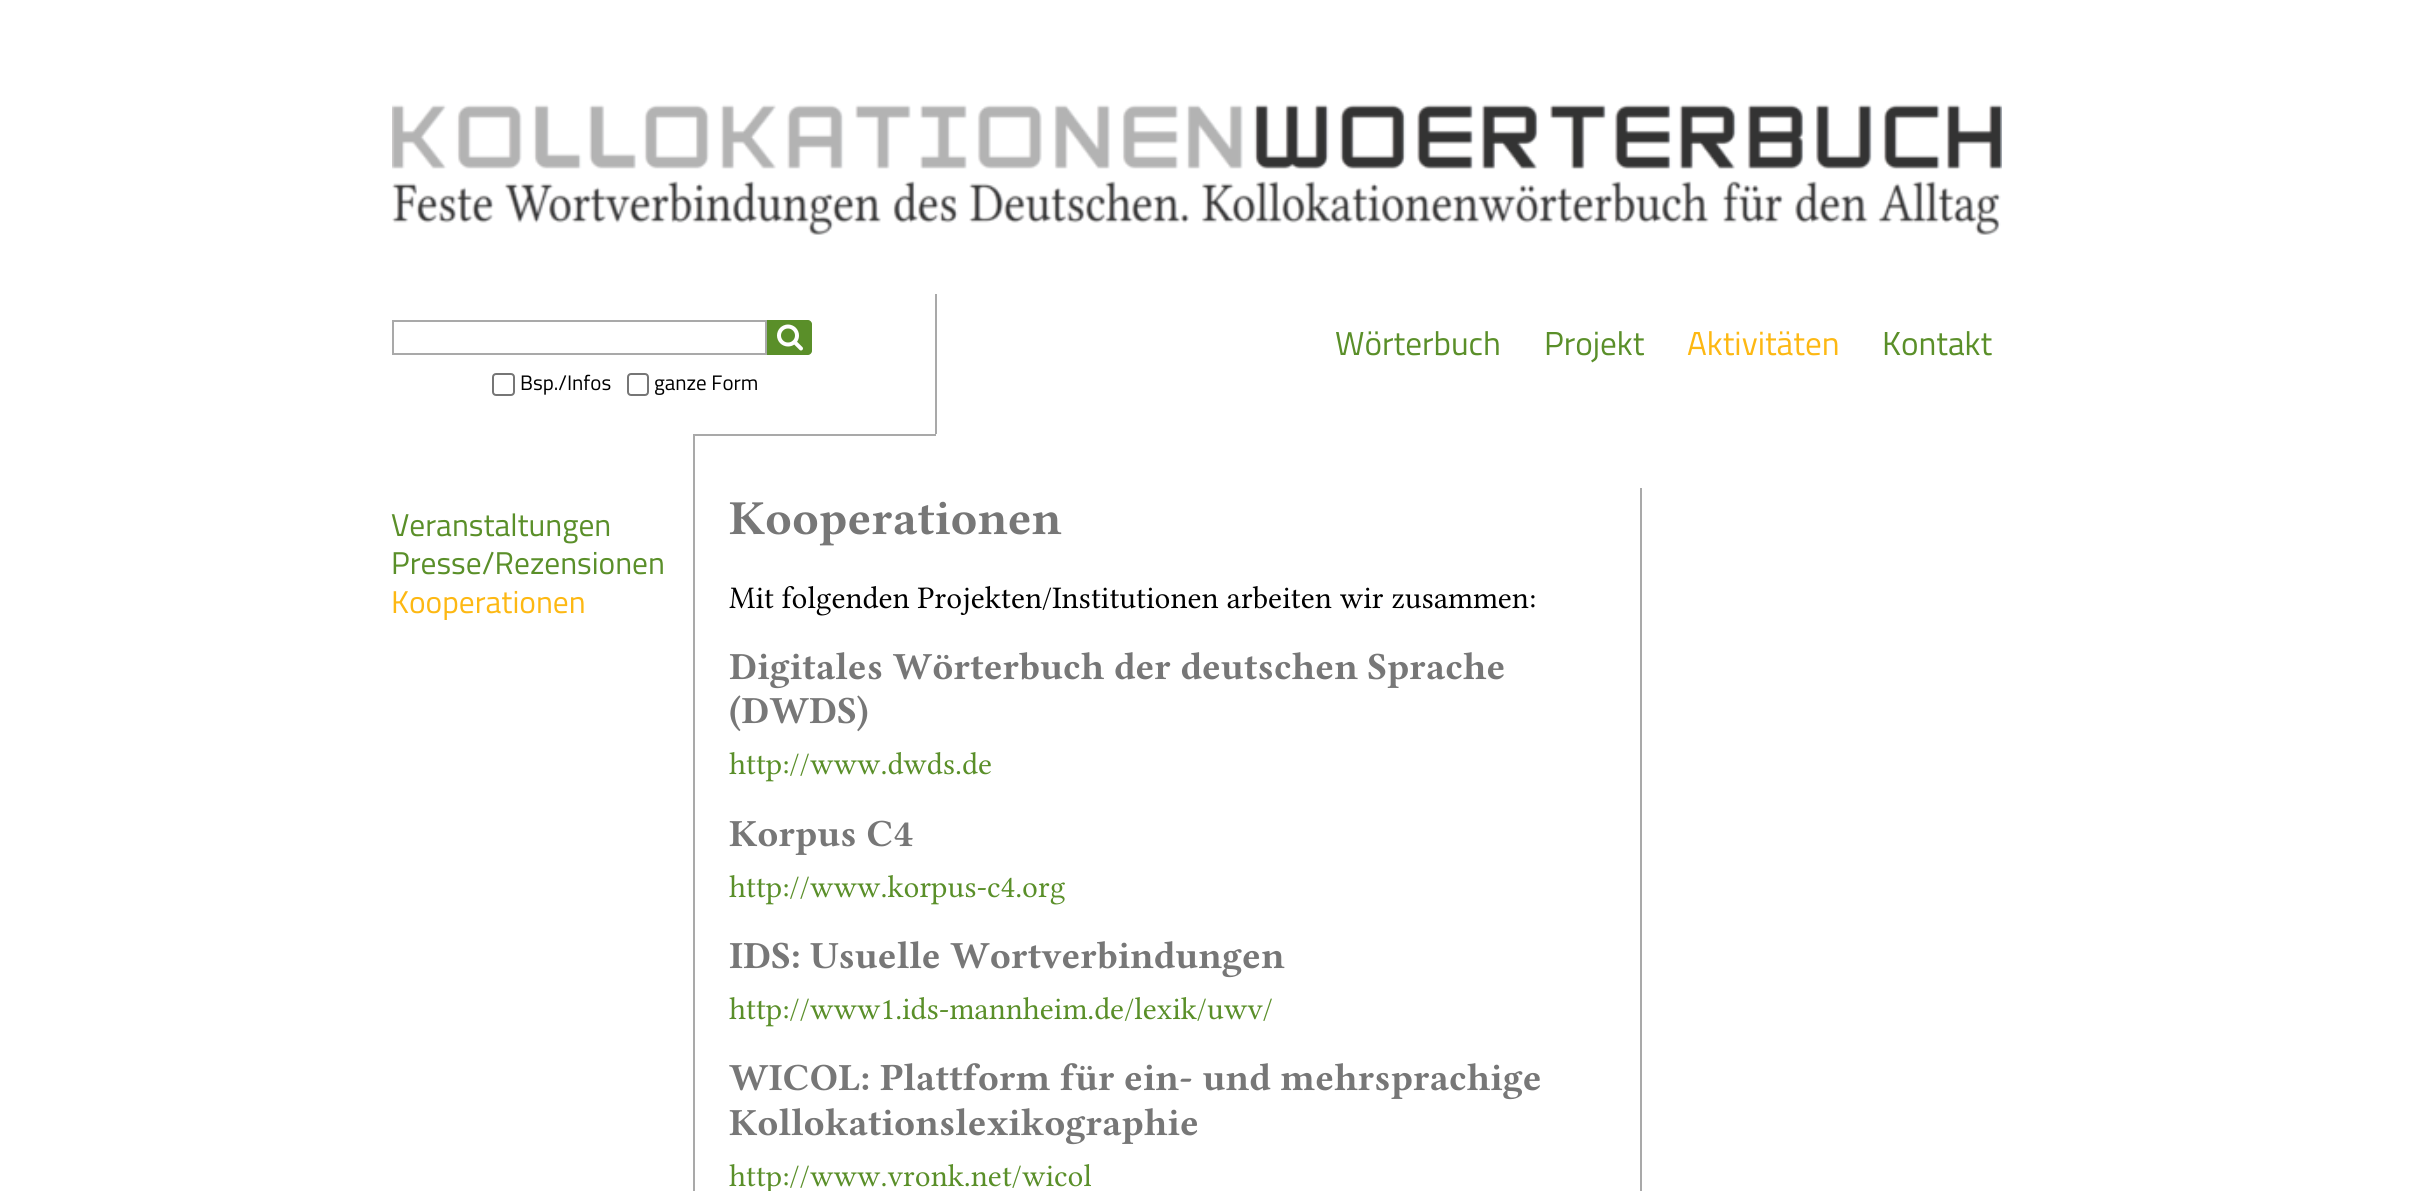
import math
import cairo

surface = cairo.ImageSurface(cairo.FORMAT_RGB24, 2426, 1191)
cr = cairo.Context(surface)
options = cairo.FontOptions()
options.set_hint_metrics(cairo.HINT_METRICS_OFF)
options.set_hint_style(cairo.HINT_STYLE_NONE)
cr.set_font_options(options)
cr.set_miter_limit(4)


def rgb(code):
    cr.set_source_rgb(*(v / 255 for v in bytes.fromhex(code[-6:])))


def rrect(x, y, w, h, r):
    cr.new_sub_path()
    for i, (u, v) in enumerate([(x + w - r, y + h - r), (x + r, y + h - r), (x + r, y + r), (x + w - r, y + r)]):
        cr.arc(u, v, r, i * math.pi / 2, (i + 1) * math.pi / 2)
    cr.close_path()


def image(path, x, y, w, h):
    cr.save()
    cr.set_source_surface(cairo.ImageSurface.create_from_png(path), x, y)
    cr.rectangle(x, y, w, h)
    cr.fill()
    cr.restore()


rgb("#ffffff")
cr.paint()
image("img/1.png", 392, 104, 1610, 131)
rgb("#a9a9a9")
cr.rectangle(935, 294, 2, 140)
cr.fill()
cr.rectangle(393, 321, 373, 33)
cr.stroke()
rgb("#5a8f29")
cr.new_path()
cr.move_to(767, 320)
cr.line_to(808, 320)
cr.curve_to(810, 320, 812, 322, 812, 324)
cr.line_to(812, 351)
cr.curve_to(812, 353, 810, 355, 808, 355)
cr.line_to(767, 355)
cr.close_path()
cr.fill()
image("img/2.png", 777, 324, 26, 27)
rrect(493, 374, 21, 21, 3)
rgb("#767676")
cr.stroke()
rrect(628, 374, 20, 21, 3)
cr.stroke()
for x, y, w, h, color in [
    (693, 434, 243, 2, "#a9a9a9"),
    (1640, 488, 2, 703, "#a9a9a9"),
    (693, 436, 2, 755, "#a9a9a9"),
]:
    rgb(color)
    cr.rectangle(x, y, w, h)
    cr.fill()
cr.select_font_face("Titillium")
cr.set_font_size(33.25)
rgb("#5a8f29")
cr.move_to(1335, 355)
cr.show_text("Wörterbuch")
cr.move_to(1544, 355)
cr.show_text("Projekt")
rgb("#fdb813")
cr.move_to(1687, 355)
cr.show_text("Aktivitäten")
rgb("#5a8f29")
cr.move_to(1882, 355)
cr.show_text("Kontakt")
cr.set_font_size(21)
rgb("#000000")
cr.move_to(520, 390)
cr.show_text("Bsp./Infos")
cr.move_to(654, 390)
cr.show_text("ganze Form")
cr.set_font_size(31.5)
rgb("#5a8f29")
cr.move_to(391, 536)
cr.show_text("Veranstaltungen")
cr.move_to(391, 574)
cr.show_text("Presse/Rezensionen")
rgb("#fdb813")
cr.move_to(391, 613)
cr.show_text("Kooperationen")
cr.select_font_face("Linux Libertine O", cairo.FONT_SLANT_NORMAL, cairo.FONT_WEIGHT_BOLD)
cr.set_font_size(49)
rgb("#777777")
cr.move_to(729, 534)
cr.show_text("Kooperationen")
cr.select_font_face("Linux Libertine O")
cr.set_font_size(31.5)
rgb("#000000")
cr.move_to(729, 608)
cr.show_text("Mit folgenden Projekten/Institutionen arbeiten wir zusammen:")
cr.select_font_face("Linux Libertine O", cairo.FONT_SLANT_NORMAL, cairo.FONT_WEIGHT_BOLD)
cr.set_font_size(38.5)
rgb("#777777")
cr.move_to(729, 679)
cr.show_text("Digitales Wörterbuch der deutschen Sprache")
cr.move_to(729, 723)
cr.show_text("(DWDS)")
cr.select_font_face("Linux Libertine O")
cr.set_font_size(31.5)
rgb("#5a8f29")
cr.move_to(729, 774)
cr.show_text("http://www.dwds.de")
cr.select_font_face("Linux Libertine O", cairo.FONT_SLANT_NORMAL, cairo.FONT_WEIGHT_BOLD)
cr.set_font_size(38.5)
rgb("#777777")
cr.move_to(729, 846)
cr.show_text("Korpus C4")
cr.select_font_face("Linux Libertine O")
cr.set_font_size(31.5)
rgb("#5a8f29")
cr.move_to(729, 897)
cr.show_text("http://www.korpus-c4.org")
cr.select_font_face("Linux Libertine O", cairo.FONT_SLANT_NORMAL, cairo.FONT_WEIGHT_BOLD)
cr.set_font_size(38.5)
rgb("#777777")
cr.move_to(729, 968)
cr.show_text("IDS: Usuelle Wortverbindungen")
cr.select_font_face("Linux Libertine O")
cr.set_font_size(31.5)
rgb("#5a8f29")
cr.move_to(729, 1019)
cr.show_text("http://www1.ids-mannheim.de/lexik/uwv/")
cr.select_font_face("Linux Libertine O", cairo.FONT_SLANT_NORMAL, cairo.FONT_WEIGHT_BOLD)
cr.set_font_size(38.5)
rgb("#777777")
cr.move_to(729, 1090)
cr.show_text("WICOL: Plattform für ein- und mehrsprachige")
cr.move_to(729, 1135)
cr.show_text("Kollokationslexikographie")
cr.select_font_face("Linux Libertine O")
cr.set_font_size(31.5)
rgb("#5a8f29")
cr.move_to(729, 1186)
cr.show_text("http://www.vronk.net/wicol")
surface.write_to_png("page.png")
